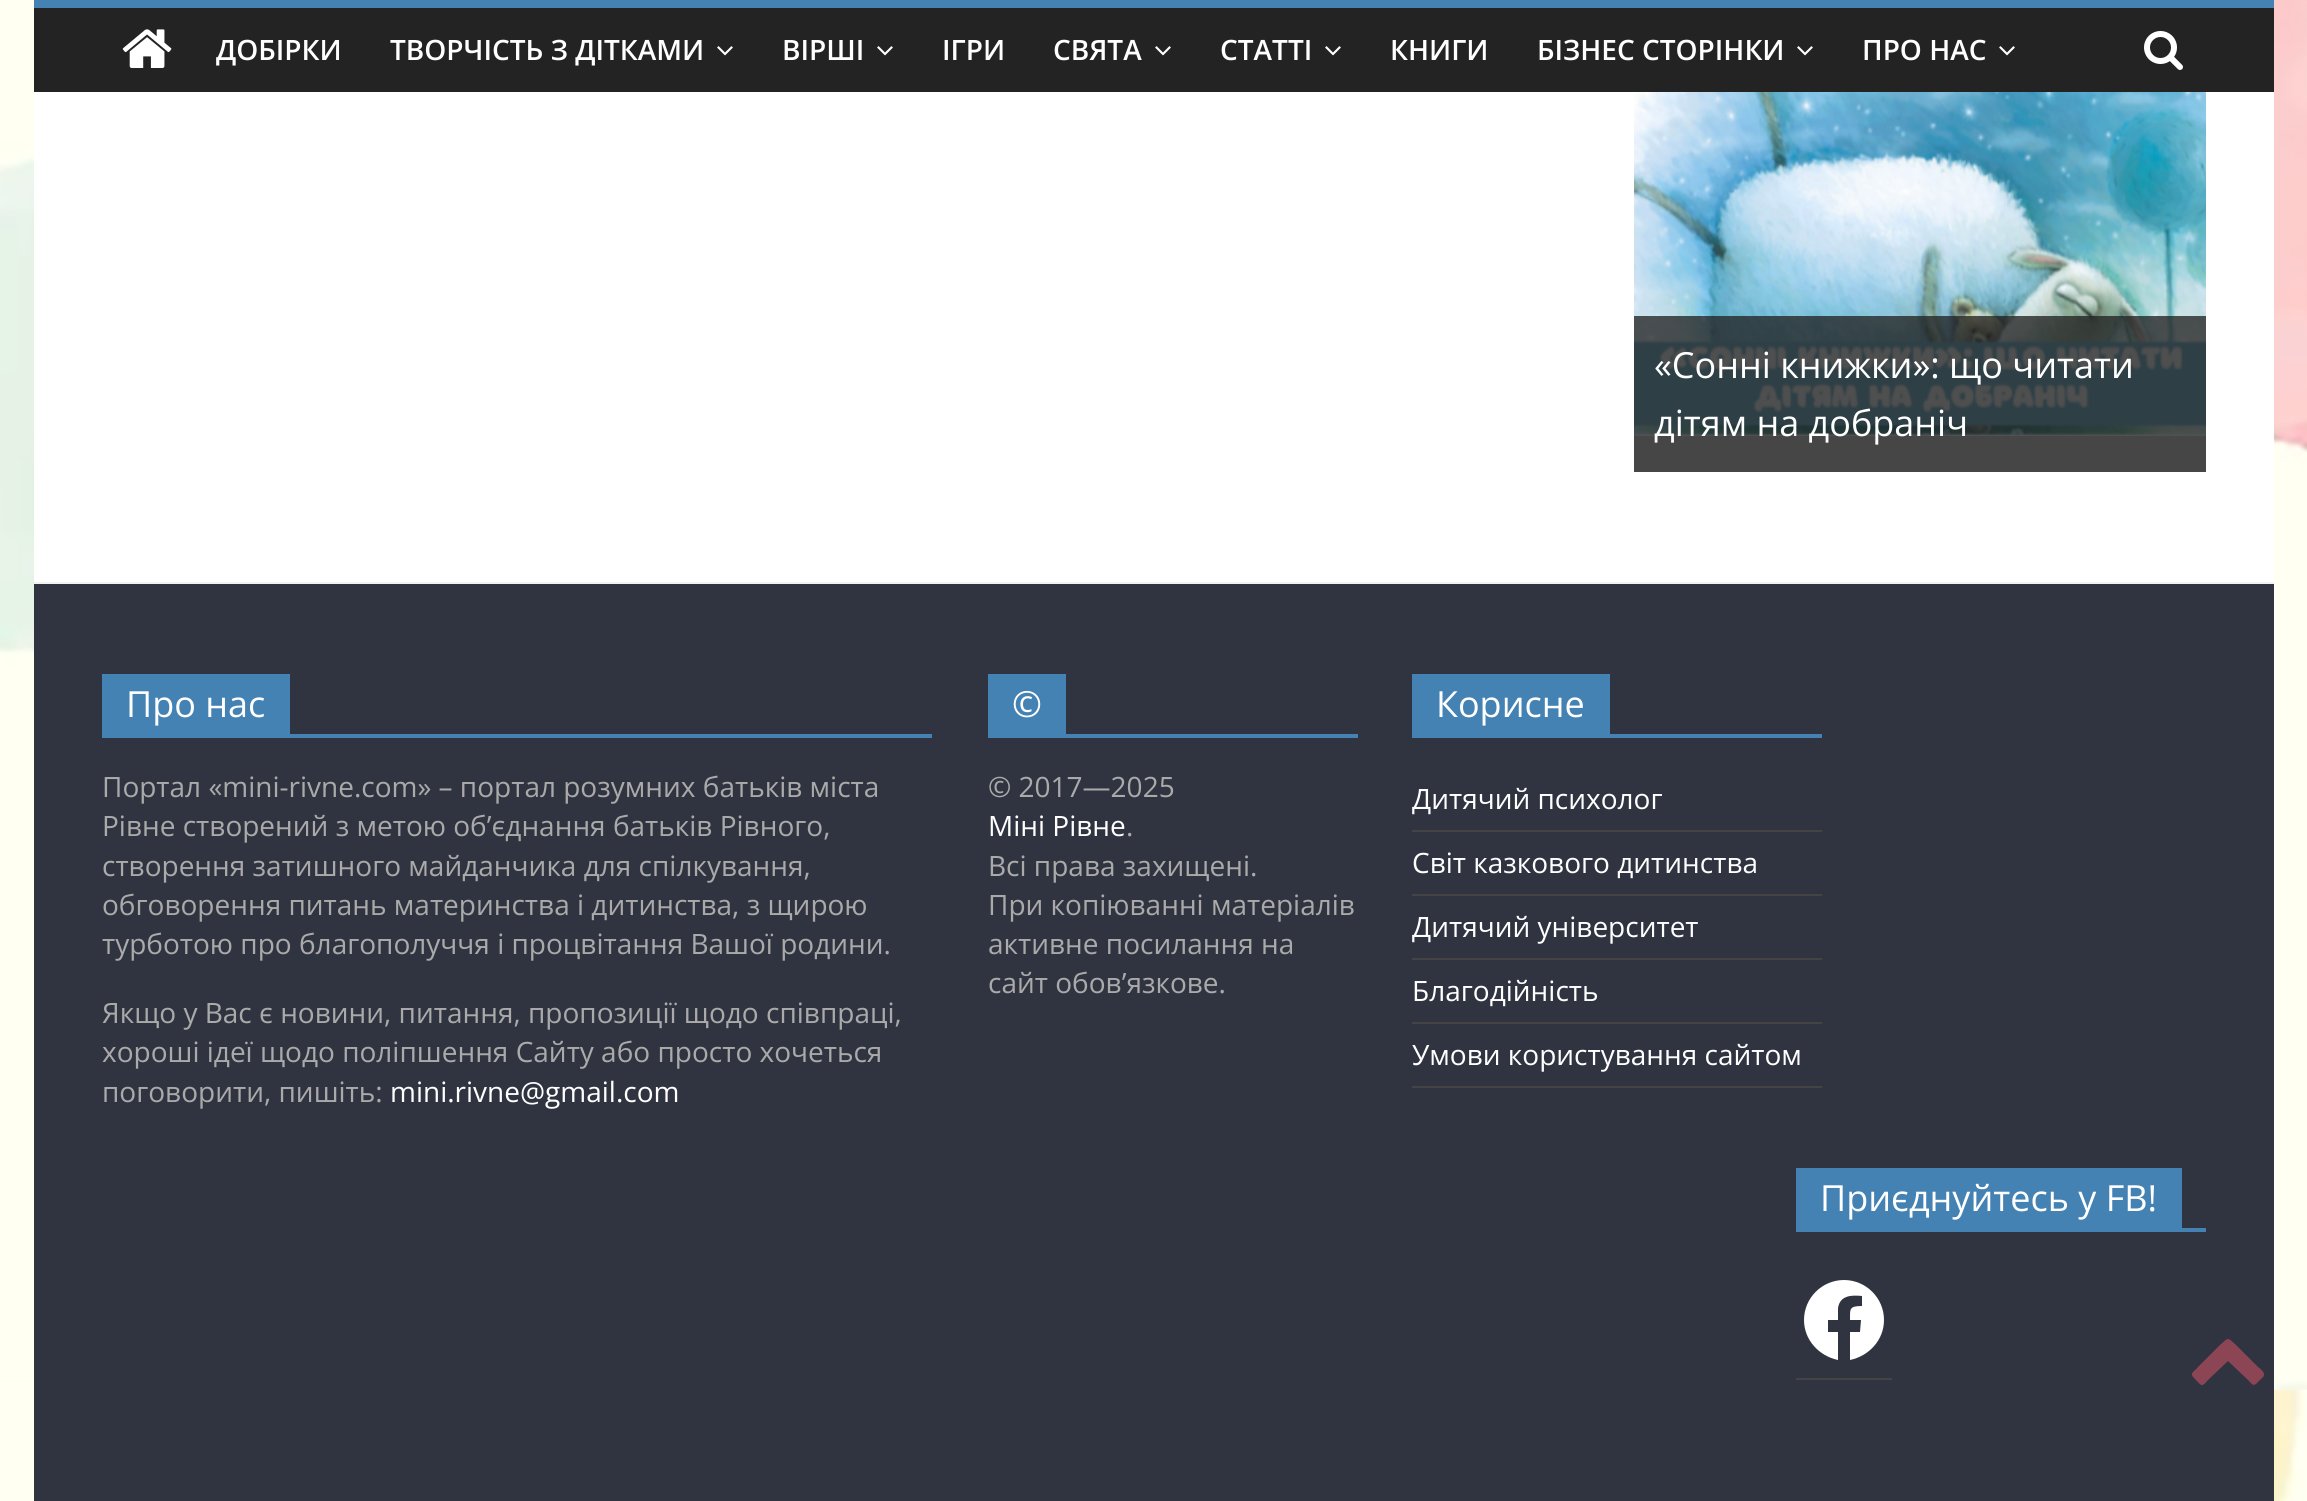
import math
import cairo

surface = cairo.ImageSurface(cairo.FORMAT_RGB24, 2307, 1501)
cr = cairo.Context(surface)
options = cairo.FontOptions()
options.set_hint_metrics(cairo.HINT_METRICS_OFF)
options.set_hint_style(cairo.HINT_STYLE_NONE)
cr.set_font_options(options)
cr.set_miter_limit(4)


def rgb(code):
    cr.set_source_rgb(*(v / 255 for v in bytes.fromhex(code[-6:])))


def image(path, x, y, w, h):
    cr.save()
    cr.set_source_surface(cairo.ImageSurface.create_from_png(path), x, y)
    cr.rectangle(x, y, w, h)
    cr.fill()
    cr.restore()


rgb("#ffffff")
cr.paint()
image("img/1.png", 0, 0, 2307, 1501)
rgb("#232323")
cr.rectangle(34, 8, 2240, 84)
cr.fill()
rgb("#4582b4")
cr.rectangle(34, 0, 2240, 8)
cr.fill()
image("img/2.png", 122, 29, 50, 39)
image("img/3.png", 717, 46, 16, 10)
image("img/3.png", 877, 46, 16, 10)
image("img/3.png", 1155, 46, 16, 10)
image("img/3.png", 1325, 46, 16, 10)
image("img/3.png", 1797, 46, 16, 10)
image("img/3.png", 1999, 46, 16, 10)
image("img/4.png", 2144, 31, 39, 39)
rgb("#ffffff")
cr.rectangle(34, 92, 2240, 490)
cr.fill()
rgb("#c1c1c1")
cr.rectangle(1634, 434, 572, 38)
cr.fill()
image("img/5.png", 1634, 92, 572, 344)
cr.set_source_rgba(0.133, 0.133, 0.133, 0.77)
cr.rectangle(1634, 316, 572, 156)
cr.fill()
rgb("#303440")
cr.rectangle(34, 584, 2240, 917)
cr.fill()
rgb("#f2f2f2")
cr.rectangle(34, 582, 2240, 2)
cr.fill()
rgb("#4582b4")
cr.rectangle(102, 734, 830, 4)
cr.rectangle(102, 674, 188, 60)
cr.rectangle(988, 734, 370, 4)
cr.rectangle(988, 674, 78, 60)
cr.rectangle(1412, 734, 410, 4)
cr.rectangle(1412, 674, 198, 60)
cr.fill()
rgb("#444444")
cr.rectangle(1412, 830, 410, 2)
cr.rectangle(1412, 894, 410, 2)
cr.rectangle(1412, 958, 410, 2)
cr.rectangle(1412, 1022, 410, 2)
cr.rectangle(1412, 1086, 410, 2)
cr.fill()
rgb("#4582b4")
cr.rectangle(1796, 1228, 410, 4)
cr.rectangle(1796, 1168, 386, 60)
cr.fill()
rgb("#444444")
cr.rectangle(1796, 1378, 96, 2)
cr.fill()
rgb("#ffffff")
cr.new_path()
cr.move_to(1844, 1280)
cr.curve_to(1822, 1280, 1804, 1298, 1804, 1320)
cr.curve_to(1804, 1340, 1819, 1356, 1838, 1360)
cr.line_to(1838, 1332)
cr.line_to(1828, 1332)
cr.line_to(1828, 1320)
cr.line_to(1838, 1320)
cr.line_to(1838, 1308)
cr.curve_to(1840, 1295, 1852, 1295, 1862, 1296)
cr.line_to(1862, 1306)
cr.curve_to(1849, 1306, 1850, 1309, 1850, 1320)
cr.line_to(1861, 1320)
cr.line_to(1860, 1332)
cr.line_to(1850, 1332)
cr.line_to(1850, 1360)
cr.curve_to(1869, 1356, 1884, 1340, 1884, 1320)
cr.curve_to(1884, 1298, 1866, 1280, 1844, 1280)
cr.close_path()
cr.fill()
rgb("#8c4554")
cr.new_path()
cr.move_to(2263, 1377)
cr.line_to(2257, 1383)
cr.curve_to(2253, 1387, 2252, 1384, 2248, 1380)
cr.line_to(2228, 1361)
cr.line_to(2208, 1380)
cr.curve_to(2201, 1388, 2202, 1386, 2194, 1378)
cr.curve_to(2189, 1373, 2194, 1372, 2198, 1367)
cr.line_to(2220, 1345)
cr.curve_to(2229, 1337, 2227, 1337, 2236, 1345)
cr.line_to(2258, 1367)
cr.curve_to(2259, 1368, 2267, 1373, 2263, 1377)
cr.close_path()
cr.fill()
cr.select_font_face("Open Sans SemiBold")
cr.set_font_size(28)
rgb("#ffffff")
for x, y, s in [
    (216, 60, "ДОБІРКИ"),
    (390, 60, "ТВОРЧІСТЬ З ДІТКАМИ"),
    (782, 60, "ВІРШІ"),
    (942, 60, "ІГРИ"),
    (1053, 60, "СВЯТА"),
    (1220, 60, "СТАТТІ"),
    (1390, 60, "КНИГИ"),
    (1537, 60, "БІЗНЕС СТОРІНКИ"),
    (1862, 60, "ПРО НАС"),
]:
    cr.move_to(x, y)
    cr.show_text(s)
cr.select_font_face("Open Sans")
cr.set_font_size(36)
for x, y, s in [
    (1654, 378, "«Сонні книжки»: що читати"),
    (1654, 436, "дітям на добраніч"),
    (126, 717, "Про нас"),
]:
    cr.move_to(x, y)
    cr.show_text(s)
cr.set_font_size(28)
rgb("#aaaaaa")
for x, y, s in [
    (102, 797, "Портал «mini-rivne.com» – портал розумних батьків міста"),
    (102, 836, "Рівне створений з метою об’єднання батьків Рівного,"),
    (102, 876, "створення затишного майданчика для спілкування,"),
    (102, 915, "обговорення питань материнства і дитинства, з щирою"),
    (102, 954, "турботою про благополуччя і процвітання Вашої родини."),
    (102, 1023, "Якщо у Вас є новини, питання, пропозиції щодо співпраці,"),
    (102, 1062, "хороші ідеї щодо поліпшення Сайту або просто хочеться"),
    (102, 1102, "поговорити, пишіть:"),
]:
    cr.move_to(x, y)
    cr.show_text(s)
rgb("#ffffff")
cr.move_to(390, 1102)
cr.show_text("mini.rivne@gmail.com")
cr.set_font_size(36)
cr.move_to(1012, 717)
cr.show_text("©")
cr.set_font_size(28)
rgb("#aaaaaa")
cr.move_to(988, 797)
cr.show_text("© 2017—2025")
rgb("#ffffff")
cr.move_to(988, 836)
cr.show_text("Міні Рівне")
rgb("#aaaaaa")
for x, y, s in [
    (1126, 836, "."),
    (988, 876, "Всі права захищені."),
    (988, 915, "При копіюванні матеріалів"),
    (988, 954, "активне посилання на"),
    (988, 993, "сайт обов’язкове."),
]:
    cr.move_to(x, y)
    cr.show_text(s)
cr.set_font_size(36)
rgb("#ffffff")
cr.move_to(1436, 717)
cr.show_text("Корисне")
cr.set_font_size(28)
for x, y, s in [
    (1412, 809, "Дитячий психолог"),
    (1412, 873, "Світ казкового дитинства"),
    (1412, 937, "Дитячий університет"),
    (1412, 1001, "Благодійність"),
    (1412, 1065, "Умови користування сайтом"),
]:
    cr.move_to(x, y)
    cr.show_text(s)
cr.set_font_size(36)
cr.move_to(1820, 1211)
cr.show_text("Приєднуйтесь у FB!")
surface.write_to_png("page.png")
